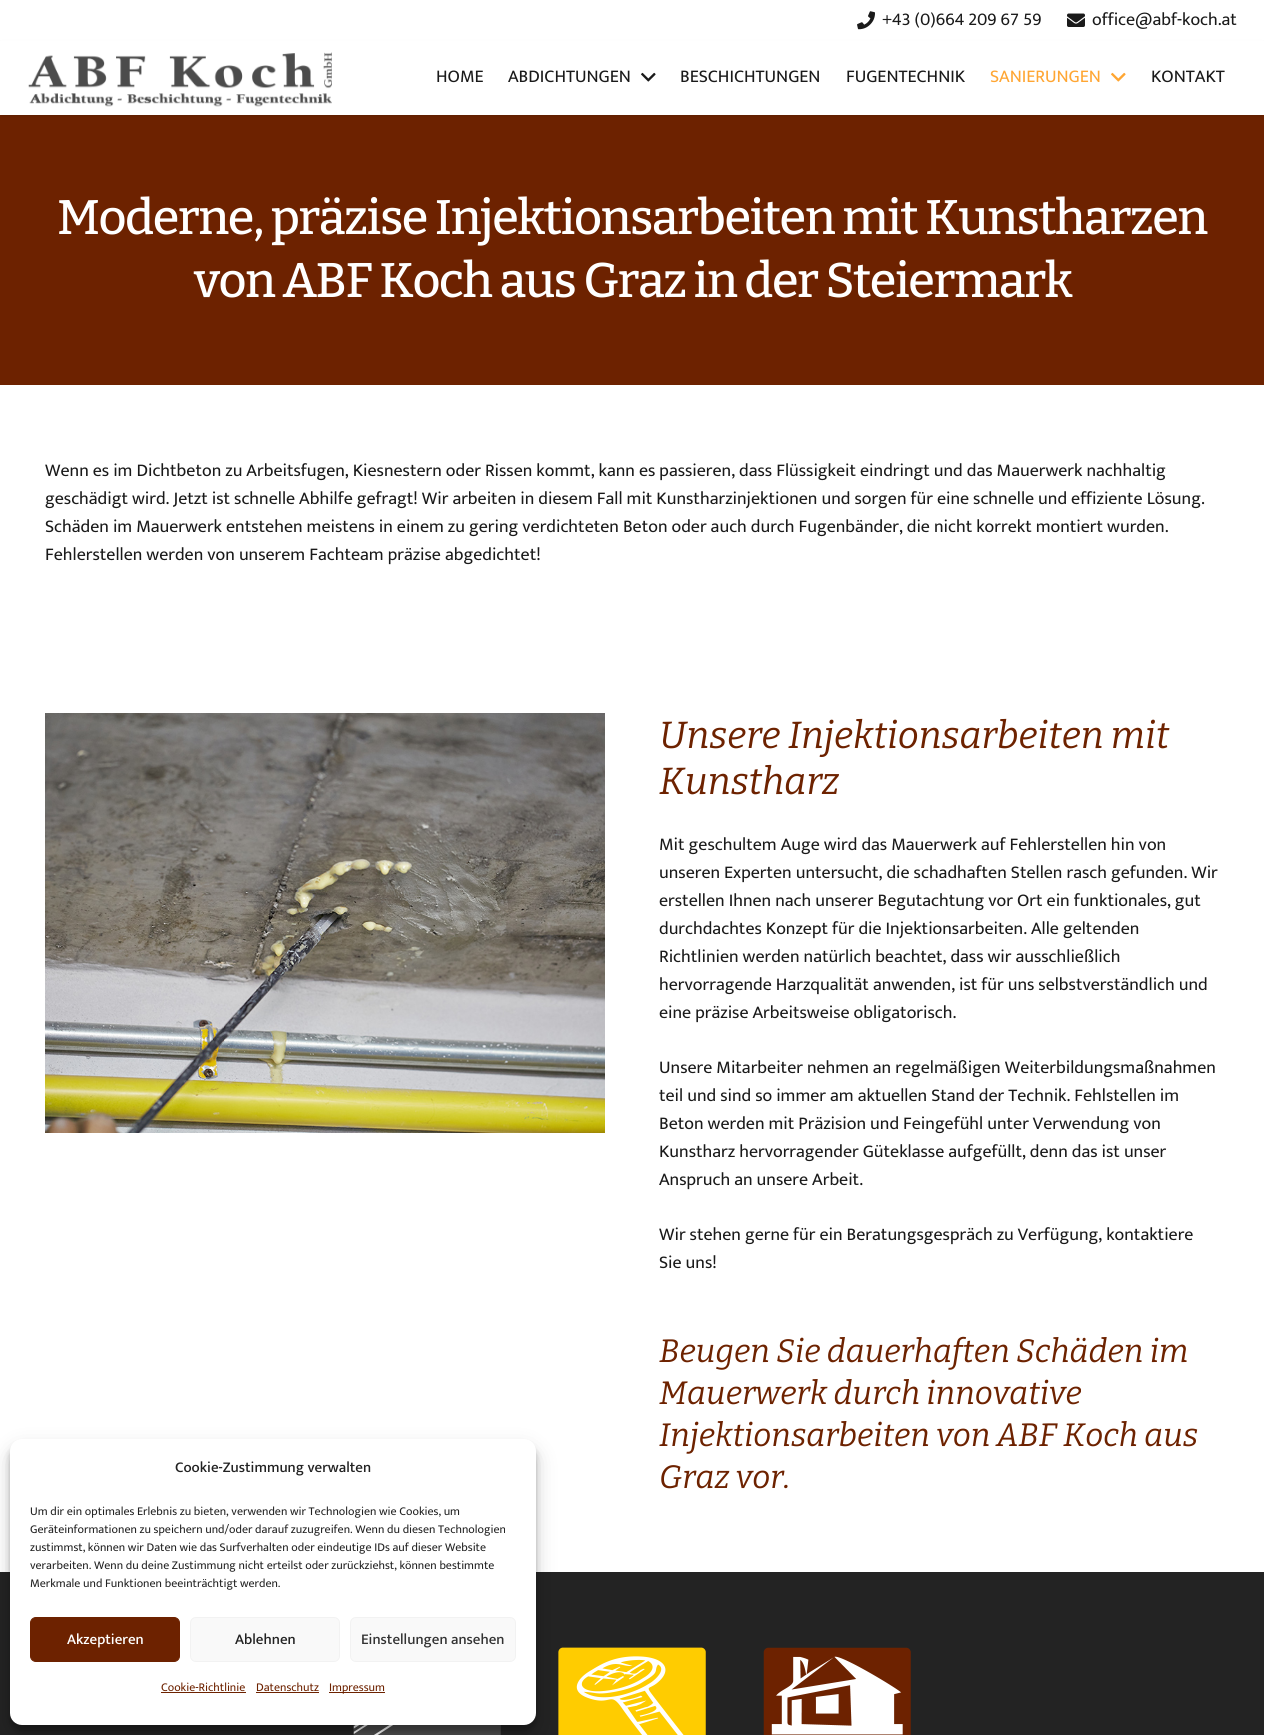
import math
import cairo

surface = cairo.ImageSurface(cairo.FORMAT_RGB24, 1264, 1735)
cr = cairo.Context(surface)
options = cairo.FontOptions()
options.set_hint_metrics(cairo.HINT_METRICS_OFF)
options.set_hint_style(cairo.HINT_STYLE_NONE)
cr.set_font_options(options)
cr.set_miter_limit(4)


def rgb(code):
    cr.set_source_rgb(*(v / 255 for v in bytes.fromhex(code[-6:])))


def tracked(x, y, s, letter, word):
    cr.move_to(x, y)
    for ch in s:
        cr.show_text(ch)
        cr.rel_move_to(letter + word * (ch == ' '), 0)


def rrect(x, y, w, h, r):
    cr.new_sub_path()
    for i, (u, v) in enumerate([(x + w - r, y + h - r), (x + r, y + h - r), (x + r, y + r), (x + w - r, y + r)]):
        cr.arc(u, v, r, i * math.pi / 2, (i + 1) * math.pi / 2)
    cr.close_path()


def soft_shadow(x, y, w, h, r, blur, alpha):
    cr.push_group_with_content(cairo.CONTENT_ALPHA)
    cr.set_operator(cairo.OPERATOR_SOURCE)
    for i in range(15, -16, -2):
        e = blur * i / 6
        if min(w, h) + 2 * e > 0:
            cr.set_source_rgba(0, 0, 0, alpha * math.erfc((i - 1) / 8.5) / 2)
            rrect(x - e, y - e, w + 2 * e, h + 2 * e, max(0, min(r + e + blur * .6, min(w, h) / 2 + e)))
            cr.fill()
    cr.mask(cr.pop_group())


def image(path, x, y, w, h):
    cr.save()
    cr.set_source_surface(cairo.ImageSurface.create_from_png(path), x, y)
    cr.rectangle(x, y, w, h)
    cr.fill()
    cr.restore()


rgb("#ffffff")
cr.paint()
image("img/1.png", 857, 11, 18, 19)
image("img/2.png", 1067, 13, 18, 14)
rgb("#6d2200")
cr.rectangle(0, 115, 1264, 270)
cr.fill()
rgb("#000000")
soft_shadow(1, 43, 1262, 73, 0, 0.5, 0.05)
soft_shadow(1, 44, 1262, 73, 0, 2.5, 0.1)
rgb("#ffffff")
cr.rectangle(0, 41, 1264, 74)
cr.fill()
image("img/3.png", 28, 52, 304, 55)
image("img/4.png", 641, 72, 15, 10)
image("img/5.png", 1111, 72, 15, 10)
image("img/6.png", 45, 713, 560, 420)
rgb("#232323")
cr.rectangle(0, 1572, 1264, 163)
cr.fill()
image("img/7.png", 353, 1725, 148, 10)
rgb("#000000")
soft_shadow(10, 1445, 526, 286, 12, 3, 0.23)
image("img/8.png", 558, 1647, 148, 88)
soft_shadow(10, 1449, 526, 286, 12, 10, 0.19)
rgb("#ffffff")
rrect(10, 1439, 526, 286, 12)
cr.fill()
rgb("#6d2200")
rrect(30.5, 1617.5, 149, 44, 5.5)
cr.fill_preserve()
cr.set_line_width(1)
cr.stroke()
rgb("#f9f9f9")
rrect(190.5, 1617.5, 149, 44, 5.5)
cr.fill_preserve()
rgb("#f2f2f2")
cr.stroke()
rgb("#f9f9f9")
rrect(350.5, 1617.5, 165, 44, 5.5)
cr.fill_preserve()
rgb("#f2f2f2")
cr.stroke()
for x, y, w, h, color in [
    (161, 1692, 85, 1, "#6d2200"),
    (256, 1692, 63, 1, "#6d2200"),
    (329, 1692, 56, 1, "#6d2200"),
]:
    rgb(color)
    cr.rectangle(x, y, w, h)
    cr.fill()
image("img/9.png", 763, 1647, 148, 88)
cr.select_font_face("Mukta")
cr.set_font_size(18)
rgb("#1a1a1a")
for x, y, s in [
    (882, 25, "+43 (0)664 209 67 59"),
    (1092, 25, "office@abf-koch.at"),
    (436, 82, "HOME"),
    (508, 82, "ABDICHTUNGEN"),
    (680, 82, "BESCHICHTUNGEN"),
    (846, 82, "FUGENTECHNIK"),
]:
    cr.move_to(x, y)
    cr.show_text(s)
rgb("#ffa633")
cr.move_to(990, 82)
cr.show_text("SANIERUNGEN")
rgb("#1a1a1a")
cr.move_to(1151, 82)
cr.show_text("KONTAKT")
cr.select_font_face("Bitter Medium")
cr.set_font_size(48.6)
rgb("#ffffff")
tracked(57, 234, "Moderne, präzise Injektionsarbeiten mit Kunstharzen", -1.45, 0)
tracked(194, 297, "von ABF Koch aus Graz in der Steiermark", -1.45, 0)
cr.select_font_face("Mukta")
cr.set_font_size(18)
rgb("#1a1a1a")
for x, y, s in [
    (45, 476, "Wenn es im Dichtbeton zu Arbeitsfugen, Kiesnestern oder Rissen kommt, kann es passieren, dass Flüssigkeit eindringt und das Mauerwerk nachhaltig"),
    (45, 504, "geschädigt wird. Jetzt ist schnelle Abhilfe gefragt! Wir arbeiten in diesem Fall mit Kunstharzinjektionen und sorgen für eine schnelle und effiziente Lösung."),
    (45, 532, "Schäden im Mauerwerk entstehen meistens in einem zu gering verdichteten Beton oder auch durch Fugenbänder, die nicht korrekt montiert wurden."),
    (45, 560, "Fehlerstellen werden von unserem Fachteam präzise abgedichtet!"),
]:
    cr.move_to(x, y)
    cr.show_text(s)
cr.select_font_face("Bitter", cairo.FONT_SLANT_ITALIC)
cr.set_font_size(37.75)
rgb("#6d2200")
cr.move_to(659, 748)
cr.show_text("Unsere Injektionsarbeiten mit")
cr.move_to(659, 794)
cr.show_text("Kunstharz")
cr.select_font_face("Mukta")
cr.set_font_size(18)
rgb("#1a1a1a")
for x, y, s in [
    (659, 850, "Mit geschultem Auge wird das Mauerwerk auf Fehlerstellen hin von"),
    (659, 878, "unseren Experten untersucht, die schadhaften Stellen rasch gefunden. Wir"),
    (659, 906, "erstellen Ihnen nach unserer Begutachtung vor Ort ein funktionales, gut"),
    (659, 934, "durchdachtes Konzept für die Injektionsarbeiten. Alle geltenden"),
    (659, 962, "Richtlinien werden natürlich beachtet, dass wir ausschließlich"),
    (659, 990, "hervorragende Harzqualität anwenden, ist für uns selbstverständlich und"),
    (659, 1018, "eine präzise Arbeitsweise obligatorisch."),
    (659, 1073, "Unsere Mitarbeiter nehmen an regelmäßigen Weiterbildungsmaßnahmen"),
    (659, 1101, "teil und sind so immer am aktuellen Stand der Technik. Fehlstellen im"),
    (659, 1129, "Beton werden mit Präzision und Feingefühl unter Verwendung von"),
    (659, 1157, "Kunstharz hervorragender Güteklasse aufgefüllt, denn das ist unser"),
    (659, 1185, "Anspruch an unsere Arbeit."),
    (659, 1240, "Wir stehen gerne für ein Beratungsgespräch zu Verfügung, kontaktiere"),
    (659, 1268, "Sie uns!"),
]:
    cr.move_to(x, y)
    cr.show_text(s)
cr.select_font_face("Bitter", cairo.FONT_SLANT_ITALIC)
cr.set_font_size(32.4)
rgb("#6d2200")
for x, y, s in [
    (659, 1362, "Beugen Sie dauerhaften Schäden im"),
    (659, 1404, "Mauerwerk durch innovative"),
    (659, 1446, "Injektionsarbeiten von ABF Koch aus"),
    (659, 1488, "Graz vor."),
]:
    cr.move_to(x, y)
    cr.show_text(s)
cr.select_font_face("Mukta Medium")
cr.set_font_size(15)
rgb("#222222")
cr.move_to(175, 1472)
cr.show_text("Cookie-Zustimmung verwalten")
cr.select_font_face("Mukta")
cr.set_font_size(12)
for x, y, s in [
    (30, 1515, "Um dir ein optimales Erlebnis zu bieten, verwenden wir Technologien wie Cookies, um"),
    (30, 1533, "Geräteinformationen zu speichern und/oder darauf zuzugreifen. Wenn du diesen Technologien"),
    (30, 1551, "zustimmst, können wir Daten wie das Surfverhalten oder eindeutige IDs auf dieser Website"),
    (30, 1569, "verarbeiten. Wenn du deine Zustimmung nicht erteilst oder zurückziehst, können bestimmte"),
    (30, 1587, "Merkmale und Funktionen beeinträchtigt werden."),
]:
    cr.move_to(x, y)
    cr.show_text(s)
cr.select_font_face("Mukta Medium")
cr.set_font_size(15)
rgb("#ffffff")
cr.move_to(67, 1644)
cr.show_text("Akzeptieren")
rgb("#222222")
cr.move_to(235, 1644)
cr.show_text("Ablehnen")
rgb("#333333")
cr.move_to(361, 1644)
cr.show_text("Einstellungen ansehen")
cr.select_font_face("Mukta")
cr.set_font_size(12)
rgb("#6d2200")
for x, y, s in [
    (161, 1691, "Cookie-Richtlinie"),
    (256, 1691, "Datenschutz"),
    (329, 1691, "Impressum"),
]:
    cr.move_to(x, y)
    cr.show_text(s)
surface.write_to_png("page.png")
